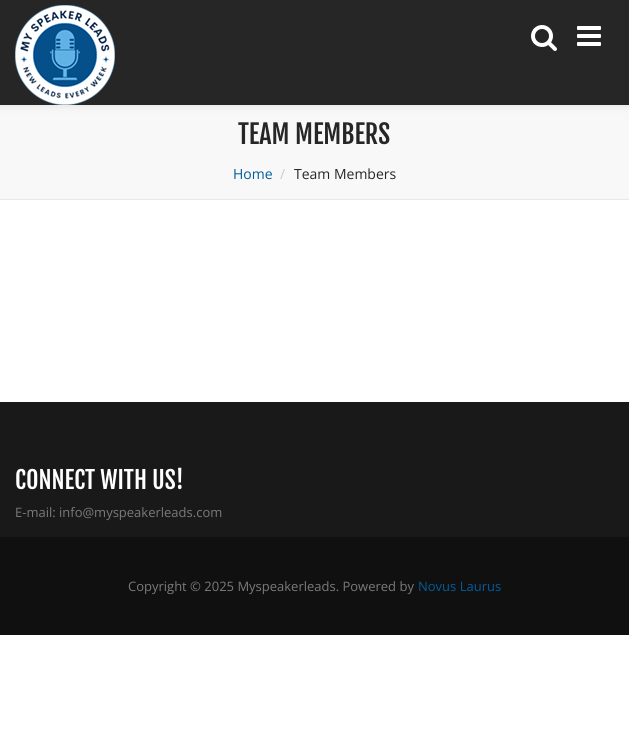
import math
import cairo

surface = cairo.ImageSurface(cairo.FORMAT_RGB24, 629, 731)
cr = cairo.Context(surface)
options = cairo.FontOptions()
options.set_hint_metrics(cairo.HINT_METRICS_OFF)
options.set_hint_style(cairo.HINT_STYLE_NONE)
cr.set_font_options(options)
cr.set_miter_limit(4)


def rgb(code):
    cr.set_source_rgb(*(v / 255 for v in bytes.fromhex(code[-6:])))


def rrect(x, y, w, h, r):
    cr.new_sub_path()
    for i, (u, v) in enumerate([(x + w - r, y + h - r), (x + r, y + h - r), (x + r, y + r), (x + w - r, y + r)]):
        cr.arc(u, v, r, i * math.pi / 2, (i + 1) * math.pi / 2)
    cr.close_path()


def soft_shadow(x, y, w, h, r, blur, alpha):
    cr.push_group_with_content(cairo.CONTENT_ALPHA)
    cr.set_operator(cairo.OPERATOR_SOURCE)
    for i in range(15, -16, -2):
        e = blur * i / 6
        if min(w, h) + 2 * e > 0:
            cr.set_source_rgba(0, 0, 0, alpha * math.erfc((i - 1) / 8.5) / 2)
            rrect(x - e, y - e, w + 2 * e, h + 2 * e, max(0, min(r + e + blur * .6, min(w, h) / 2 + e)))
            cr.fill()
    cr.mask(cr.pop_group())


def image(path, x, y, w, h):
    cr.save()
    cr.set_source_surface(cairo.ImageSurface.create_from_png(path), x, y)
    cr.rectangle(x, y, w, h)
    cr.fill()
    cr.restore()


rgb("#ffffff")
cr.paint()
rgb("#f8f8f8")
cr.rectangle(0, 105, 629, 94)
cr.fill()
rgb("#000000")
soft_shadow(0, 0, 629, 105, 0, 5, 0.1)
rgb("#262626")
cr.rectangle(0, 0, 629, 105)
cr.fill()
image("img/1.png", 15, 5, 100, 100)
image("img/2.png", 531, 25, 26, 26)
image("img/3.png", 577, 26, 24, 20)
for x, y, w, h, color in [
    (0, 199, 629, 1, "#e8e8e8"),
    (0, 402, 629, 135, "#191919"),
    (0, 537, 629, 98, "#101010"),
]:
    rgb(color)
    cr.rectangle(x, y, w, h)
    cr.fill()
cr.select_font_face("Fjalla One")
cr.set_font_size(26)
rgb("#262626")
cr.move_to(238, 144)
cr.show_text("TEAM MEMBERS")
cr.select_font_face("Open Sans")
cr.set_font_size(14)
rgb("#035b9a")
cr.move_to(233, 179)
cr.show_text("Home")
rgb("#cccccc")
cr.move_to(280, 179)
cr.show_text("/")
rgb("#262626")
cr.move_to(294, 179)
cr.show_text("Team Members")
cr.select_font_face("Fjalla One")
cr.set_font_size(24)
rgb("#ffffff")
cr.move_to(15, 489)
cr.show_text("CONNECT WITH US!")
cr.select_font_face("Open Sans")
cr.set_font_size(13)
rgb("#7a7a7a")
cr.move_to(15, 517)
cr.show_text("E-mail: info@myspeakerleads.com")
cr.move_to(128, 591)
cr.show_text("Copyright © 2025 Myspeakerleads. Powered by")
rgb("#035b9a")
cr.move_to(418, 591)
cr.show_text("Novus Laurus")
surface.write_to_png("page.png")
